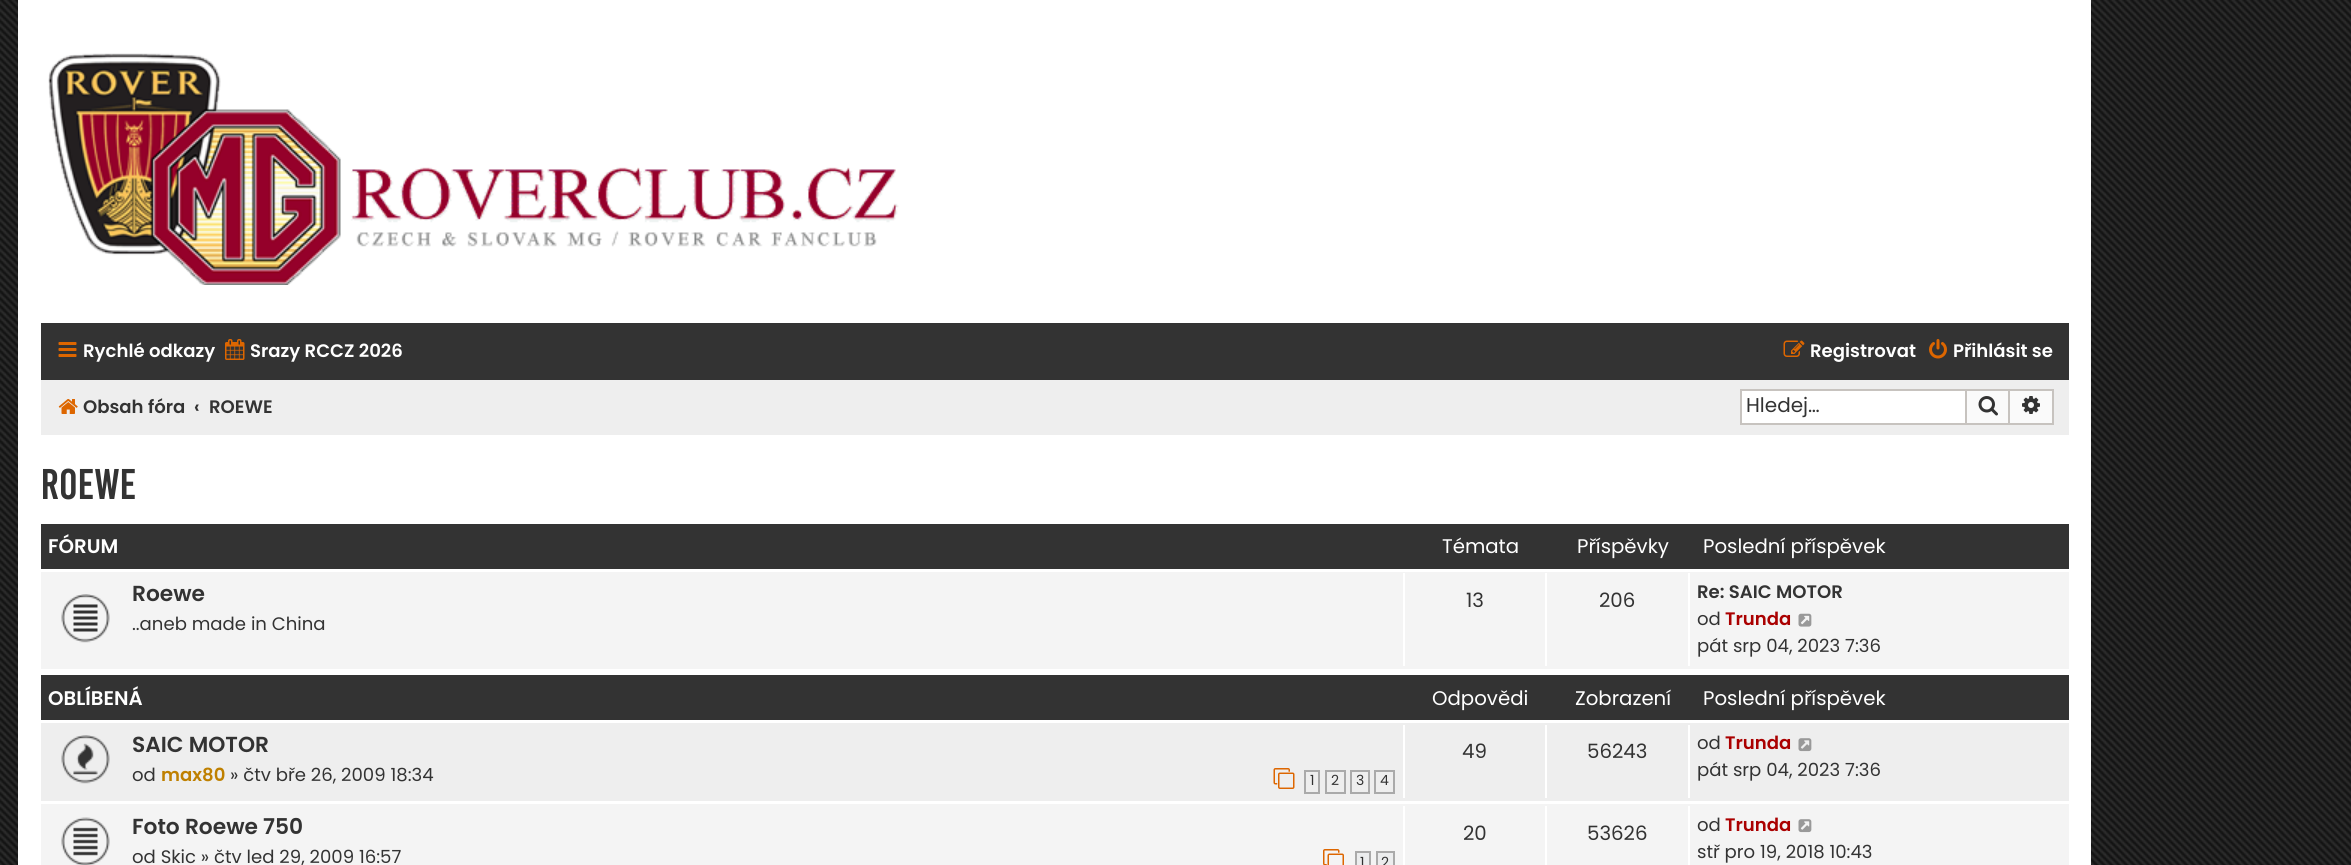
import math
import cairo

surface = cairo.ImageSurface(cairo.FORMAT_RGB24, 2351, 865)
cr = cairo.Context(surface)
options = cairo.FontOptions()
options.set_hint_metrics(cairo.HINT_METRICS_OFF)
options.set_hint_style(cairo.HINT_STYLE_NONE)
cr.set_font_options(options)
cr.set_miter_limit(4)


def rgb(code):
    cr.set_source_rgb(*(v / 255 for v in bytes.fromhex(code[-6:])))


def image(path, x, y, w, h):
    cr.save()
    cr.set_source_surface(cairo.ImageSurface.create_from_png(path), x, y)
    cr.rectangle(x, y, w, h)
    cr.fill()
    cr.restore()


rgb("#ffffff")
cr.paint()
image("img/1.png", 0, 0, 2351, 865)
rgb("#ffffff")
cr.rectangle(18, 0, 2073, 865)
cr.fill()
image("img/2.png", 48, 53, 851, 232)
rgb("#333333")
cr.rectangle(41, 323, 2028, 57)
cr.fill()
image("img/3.png", 58, 342, 19, 15)
image("img/4.png", 225, 339, 20, 21)
image("img/5.png", 1783, 340, 22, 17)
image("img/6.png", 1929, 339, 18, 20)
rgb("#eeeeee")
cr.rectangle(41, 380, 2028, 55)
cr.fill()
image("img/7.png", 58, 399, 20, 15)
for x, y, w, h, color in [
    (1742, 391, 223, 32, "#ffffff"),
    (1740, 389, 225, 2, "#c7c3bf"),
    (1740, 423, 225, 2, "#c7c3bf"),
    (1740, 389, 2, 36, "#c7c3bf"),
]:
    rgb(color)
    cr.rectangle(x, y, w, h)
    cr.fill()
rgb("#fafafa")
cr.rectangle(1966, 390, 43, 34)
cr.fill_preserve()
rgb("#c7c3bf")
cr.stroke()
image("img/8.png", 1978, 396, 20, 20)
for x, y, w, h, color in [
    (2010, 391, 42, 32, "#fafafa"),
    (2010, 389, 44, 2, "#c7c3bf"),
    (2052, 389, 2, 36, "#c7c3bf"),
    (2010, 423, 44, 2, "#c7c3bf"),
]:
    rgb(color)
    cr.rectangle(x, y, w, h)
    cr.fill()
image("img/9.png", 2022, 396, 18, 18)
rgb("#333333")
cr.rectangle(41, 524, 2028, 45)
cr.fill()
rgb("#f4f4f4")
cr.rectangle(41, 572, 2028, 97)
cr.fill()
image("img/10.png", 61, 594, 49, 49)
for x, y, w, h, color in [
    (1403, 573, 2, 93, "#ffffff"),
    (1545, 573, 2, 93, "#ffffff"),
    (1688, 573, 2, 93, "#ffffff"),
]:
    rgb(color)
    cr.rectangle(x, y, w, h)
    cr.fill()
image("img/11.png", 1798, 613, 14, 14)
rgb("#333333")
cr.rectangle(41, 675, 2028, 45)
cr.fill()
rgb("#eeeeee")
cr.rectangle(41, 723, 2028, 78)
cr.fill()
image("img/12.png", 61, 735, 49, 49)
image("img/13.png", 1273, 768, 22, 21)
cr.rectangle(1305, 771, 14, 22)
rgb("#aaaaaa")
cr.stroke()
cr.rectangle(1326, 771, 19, 22)
cr.stroke()
cr.rectangle(1351, 771, 18, 22)
cr.stroke()
cr.rectangle(1375, 771, 19, 22)
cr.stroke()
for x, y, w, h, color in [
    (1403, 725, 2, 73, "#ffffff"),
    (1545, 725, 2, 73, "#ffffff"),
    (1688, 725, 2, 73, "#ffffff"),
]:
    rgb(color)
    cr.rectangle(x, y, w, h)
    cr.fill()
image("img/14.png", 1798, 738, 14, 14)
rgb("#f4f4f4")
cr.rectangle(41, 804, 2028, 61)
cr.fill()
image("img/15.png", 61, 817, 49, 48)
image("img/16.png", 1323, 849, 21, 16)
rgb("#ecedee")
cr.rectangle(1356, 852, 14, 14)
cr.fill_preserve()
rgb("#aaaaaa")
cr.stroke()
rgb("#ecedee")
cr.rectangle(1377, 852, 17, 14)
cr.fill_preserve()
rgb("#aaaaaa")
cr.stroke()
for x, y, w, h, color in [
    (1403, 806, 2, 59, "#ffffff"),
    (1545, 806, 2, 59, "#ffffff"),
    (1688, 806, 2, 59, "#ffffff"),
]:
    rgb(color)
    cr.rectangle(x, y, w, h)
    cr.fill()
image("img/17.png", 1798, 819, 14, 14)
cr.select_font_face("Poppins SemiBold")
cr.set_font_size(18.1)
for x, y, s in [
    (83, 357, "Rychlé odkazy"),
    (250, 357, "Srazy RCCZ 2026"),
    (1810, 357, "Registrovat"),
    (1953, 357, "Přihlásit se"),
]:
    cr.move_to(x, y)
    cr.show_text(s)
rgb("#333333")
for x, y, s in [
    (83, 413, "Obsah fóra"),
    (194, 413, "‹"),
    (209, 413, "ROEWE"),
]:
    cr.move_to(x, y)
    cr.show_text(s)
cr.select_font_face("Poppins")
cr.set_font_size(20)
cr.move_to(1746, 412)
cr.show_text("Hledej…")
cr.select_font_face("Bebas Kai")
cr.set_font_size(33)
cr.move_to(41, 499)
cr.show_text("ROEWE")
cr.select_font_face("Poppins SemiBold")
cr.set_font_size(19.75)
rgb("#ffffff")
cr.move_to(48, 553)
cr.show_text("FÓRUM")
cr.select_font_face("Poppins")
for x, y, s in [
    (1442, 553, "Témata"),
    (1577, 553, "Příspěvky"),
    (1703, 553, "Poslední příspěvek"),
]:
    cr.move_to(x, y)
    cr.show_text(s)
cr.select_font_face("Poppins SemiBold")
cr.set_font_size(21.75)
rgb("#333333")
cr.move_to(132, 601)
cr.show_text("Roewe")
cr.select_font_face("Poppins")
cr.set_font_size(18.1)
cr.move_to(132, 630)
cr.show_text("..aneb made in China")
cr.set_font_size(19.75)
cr.move_to(1466, 607)
cr.show_text("13")
cr.move_to(1599, 607)
cr.show_text("206")
cr.select_font_face("Poppins SemiBold")
cr.set_font_size(18.1)
cr.move_to(1697, 598)
cr.show_text("Re: SAIC MOTOR")
cr.select_font_face("Poppins")
cr.move_to(1697, 625)
cr.show_text("od")
cr.select_font_face("Poppins SemiBold")
rgb("#aa0000")
cr.move_to(1725, 625)
cr.show_text("Trunda")
cr.select_font_face("Poppins")
rgb("#333333")
cr.move_to(1697, 652)
cr.show_text("pát srp 04, 2023 7:36")
cr.select_font_face("Poppins SemiBold")
cr.set_font_size(19.75)
rgb("#ffffff")
cr.move_to(48, 705)
cr.show_text("OBLÍBENÁ")
cr.select_font_face("Poppins")
for x, y, s in [
    (1432, 705, "Odpovědi"),
    (1575, 705, "Zobrazení"),
    (1703, 705, "Poslední příspěvek"),
]:
    cr.move_to(x, y)
    cr.show_text(s)
cr.select_font_face("Poppins SemiBold")
cr.set_font_size(21.75)
rgb("#333333")
cr.move_to(132, 752)
cr.show_text("SAIC MOTOR")
cr.select_font_face("Poppins")
cr.set_font_size(18.1)
cr.move_to(132, 781)
cr.show_text("od")
cr.select_font_face("Poppins SemiBold")
rgb("#bf8000")
cr.move_to(161, 781)
cr.show_text("max80")
cr.select_font_face("Poppins")
rgb("#333333")
cr.move_to(230, 781)
cr.show_text("» čtv bře 26, 2009 18:34")
cr.set_font_size(14)
for x, y, s in [
    (1310, 785, "1"),
    (1331, 785, "2"),
    (1356, 785, "3"),
    (1380, 785, "4"),
]:
    cr.move_to(x, y)
    cr.show_text(s)
cr.set_font_size(19.75)
cr.move_to(1462, 758)
cr.show_text("49")
cr.move_to(1587, 758)
cr.show_text("56243")
cr.set_font_size(18.1)
cr.move_to(1697, 749)
cr.show_text("od")
cr.select_font_face("Poppins SemiBold")
rgb("#aa0000")
cr.move_to(1725, 749)
cr.show_text("Trunda")
cr.select_font_face("Poppins")
rgb("#333333")
cr.move_to(1697, 776)
cr.show_text("pát srp 04, 2023 7:36")
cr.select_font_face("Poppins SemiBold")
cr.set_font_size(21.75)
cr.move_to(132, 834)
cr.show_text("Foto Roewe 750")
cr.select_font_face("Poppins")
cr.set_font_size(18.1)
cr.move_to(132, 863)
cr.show_text("od Skic » čtv led 29, 2009 16:57")
cr.set_font_size(14)
cr.move_to(1360, 867)
cr.show_text("1")
cr.move_to(1381, 867)
cr.show_text("2")
cr.set_font_size(19.75)
cr.move_to(1463, 840)
cr.show_text("20")
cr.move_to(1587, 840)
cr.show_text("53626")
cr.set_font_size(18.1)
cr.move_to(1697, 831)
cr.show_text("od")
cr.select_font_face("Poppins SemiBold")
rgb("#aa0000")
cr.move_to(1725, 831)
cr.show_text("Trunda")
cr.select_font_face("Poppins")
rgb("#333333")
cr.move_to(1697, 858)
cr.show_text("stř pro 19, 2018 10:43")
surface.write_to_png("page.png")
